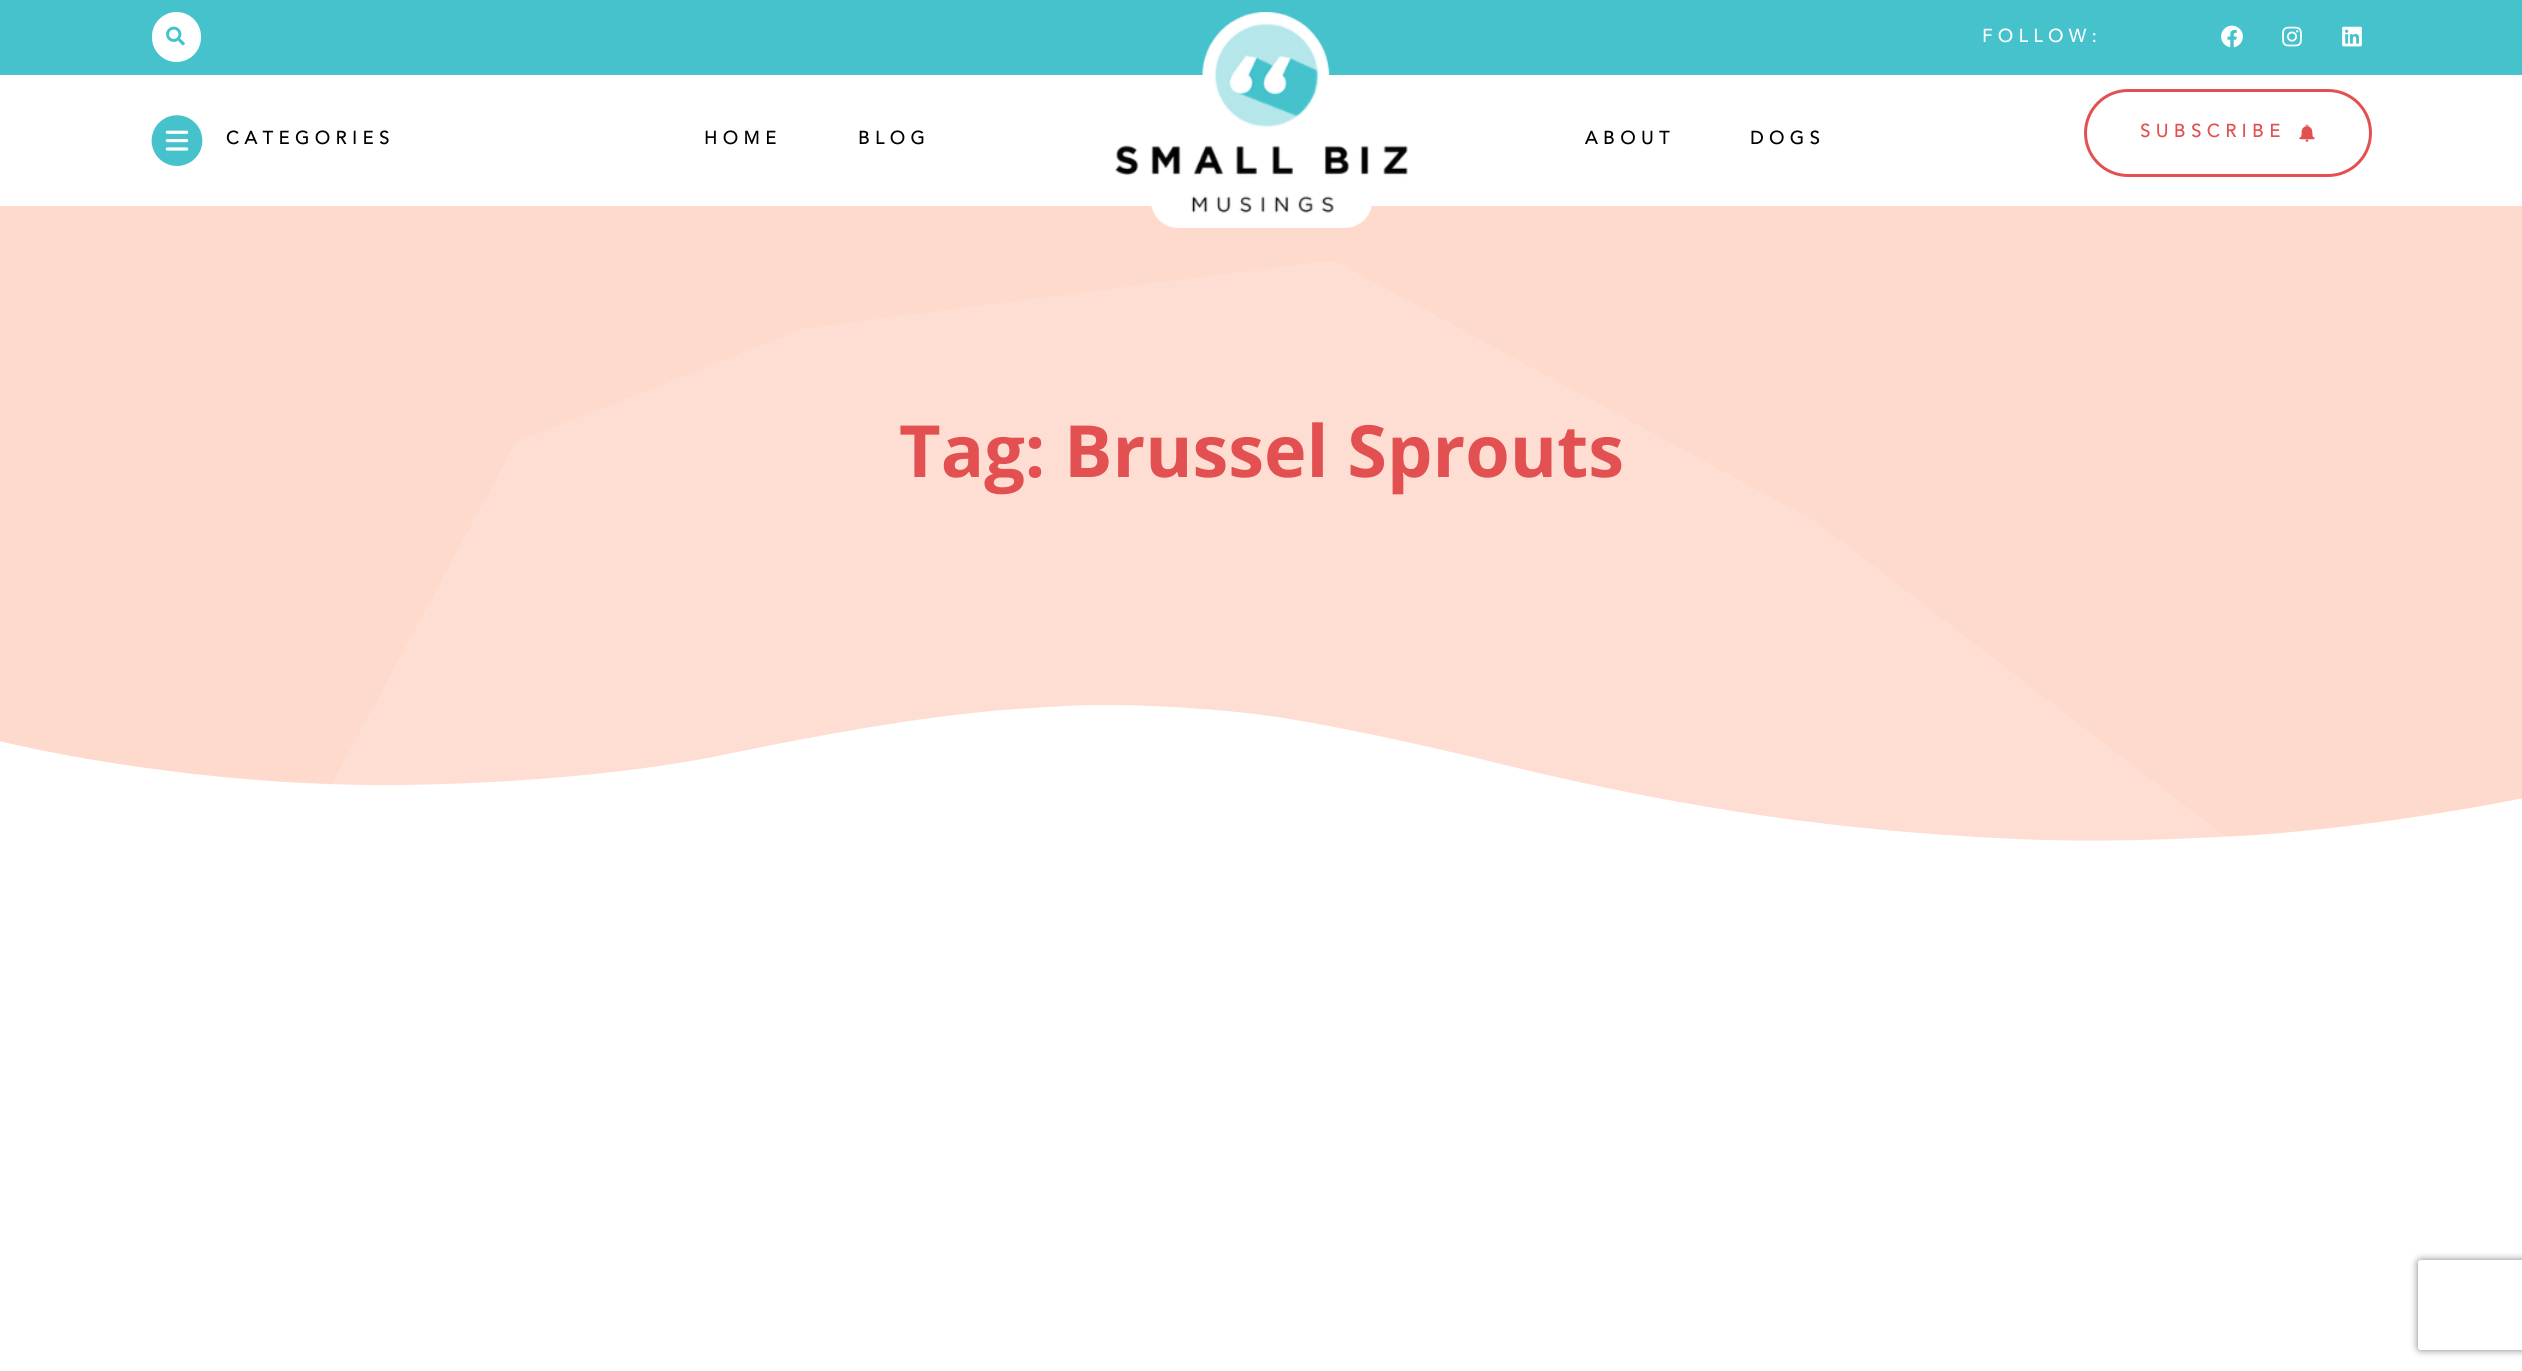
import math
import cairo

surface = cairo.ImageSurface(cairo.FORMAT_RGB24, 2522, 1371)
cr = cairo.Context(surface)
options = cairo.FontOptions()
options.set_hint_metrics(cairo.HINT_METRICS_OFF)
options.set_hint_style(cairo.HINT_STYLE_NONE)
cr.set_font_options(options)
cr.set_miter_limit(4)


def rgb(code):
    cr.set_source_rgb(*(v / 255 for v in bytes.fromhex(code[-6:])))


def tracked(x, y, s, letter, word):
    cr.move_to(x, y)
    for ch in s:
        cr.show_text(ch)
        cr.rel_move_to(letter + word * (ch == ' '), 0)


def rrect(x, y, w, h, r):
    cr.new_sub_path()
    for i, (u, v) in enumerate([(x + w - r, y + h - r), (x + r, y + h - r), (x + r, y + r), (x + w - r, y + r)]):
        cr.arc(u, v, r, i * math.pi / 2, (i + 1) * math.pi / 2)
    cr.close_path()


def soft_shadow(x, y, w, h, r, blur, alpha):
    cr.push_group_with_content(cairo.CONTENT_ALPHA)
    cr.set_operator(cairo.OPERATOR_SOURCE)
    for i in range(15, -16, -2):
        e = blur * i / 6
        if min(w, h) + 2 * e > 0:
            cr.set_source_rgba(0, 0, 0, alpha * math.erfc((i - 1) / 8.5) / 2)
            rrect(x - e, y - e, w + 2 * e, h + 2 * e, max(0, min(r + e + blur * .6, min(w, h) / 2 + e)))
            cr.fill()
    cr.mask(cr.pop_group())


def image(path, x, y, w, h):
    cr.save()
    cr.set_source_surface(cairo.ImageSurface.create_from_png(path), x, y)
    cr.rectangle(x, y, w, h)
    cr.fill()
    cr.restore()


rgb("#ffffff")
cr.paint()
rgb("#45c2cc")
cr.rectangle(0, 0, 2522, 75)
cr.fill()
rgb("#ffffff")
rrect(152, 12, 49, 50, 24.5)
cr.fill()
image("img/1.png", 166, 26, 19, 20)
image("img/2.png", 2221, 25, 22, 23)
image("img/3.png", 2282, 26, 20, 21)
image("img/4.png", 2342, 26, 20, 21)
image("img/5.png", 151, 115, 52, 51)
rgb("#fedacc")
cr.rectangle(0, 206, 2522, 635)
cr.fill()
image("img/6.png", 1115, 12, 293, 216)
rrect(2085.5, 90.5, 285, 85, 42.5)
rgb("#e35052")
cr.set_line_width(3)
cr.stroke()
image("img/7.png", 2299, 124, 16, 18)
image("img/8.png", 331, 261, 1897, 580)
rgb("#ffffff")
cr.new_path()
cr.move_to(1995, 838)
cr.curve_to(1845, 830, 1700, 812, 1509, 766)
cr.curve_to(1434, 747, 1315, 721, 1255, 714)
cr.curve_to(1195, 707, 1122, 703, 1064, 706)
cr.curve_to(1039, 708, 1007, 708, 938, 717)
cr.curve_to(869, 726, 791, 741, 737, 752)
cr.curve_to(633, 775, 498, 784, 399, 785)
cr.curve_to(181, 787, -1, 741, -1, 741)
cr.line_to(-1, 848)
cr.line_to(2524, 848)
cr.line_to(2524, 798)
cr.curve_to(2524, 798, 2394, 825, 2256, 835)
cr.curve_to(2119, 843, 2055, 841, 1995, 838)
cr.close_path()
cr.fill()
cr.save()
cr.set_fill_rule(cairo.FILL_RULE_EVEN_ODD)
cr.new_path()
cr.move_to(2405, 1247)
cr.line_to(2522, 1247)
cr.line_to(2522, 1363)
cr.line_to(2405, 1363)
cr.close_path()
cr.move_to(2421, 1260)
cr.line_to(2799, 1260)
cr.curve_to(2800.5, 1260, 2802, 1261.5, 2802, 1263)
cr.line_to(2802, 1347)
cr.curve_to(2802, 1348.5, 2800.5, 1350, 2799, 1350)
cr.line_to(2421, 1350)
cr.curve_to(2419.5, 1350, 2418, 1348.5, 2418, 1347)
cr.line_to(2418, 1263)
cr.curve_to(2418, 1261.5, 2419.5, 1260, 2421, 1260)
cr.close_path()
cr.clip()
rgb("#808080")
soft_shadow(2418, 1260, 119, 90, 3, 4, 1)
cr.restore()
cr.select_font_face("Avenir", cairo.FONT_SLANT_NORMAL, cairo.FONT_WEIGHT_BOLD)
cr.set_font_size(18)
tracked(1982, 42, "FOLLOW:", 5.75, 0)
rgb("#000000")
for x, y, s in [
    (226, 144, "CATEGORIES"),
    (704, 144, "HOME"),
    (858, 144, "BLOG"),
    (1585, 144, "ABOUT"),
    (1750, 144, "DOGS"),
]:
    tracked(x, y, s, 5.75, 0)
rgb("#e35052")
tracked(2140, 137, "SUBSCRIBE", 5.75, 0)
cr.select_font_face("Open Sans", cairo.FONT_SLANT_NORMAL, cairo.FONT_WEIGHT_BOLD)
cr.set_font_size(72)
cr.move_to(899, 477)
cr.show_text("Tag: Brussel Sprouts")
surface.write_to_png("page.png")
